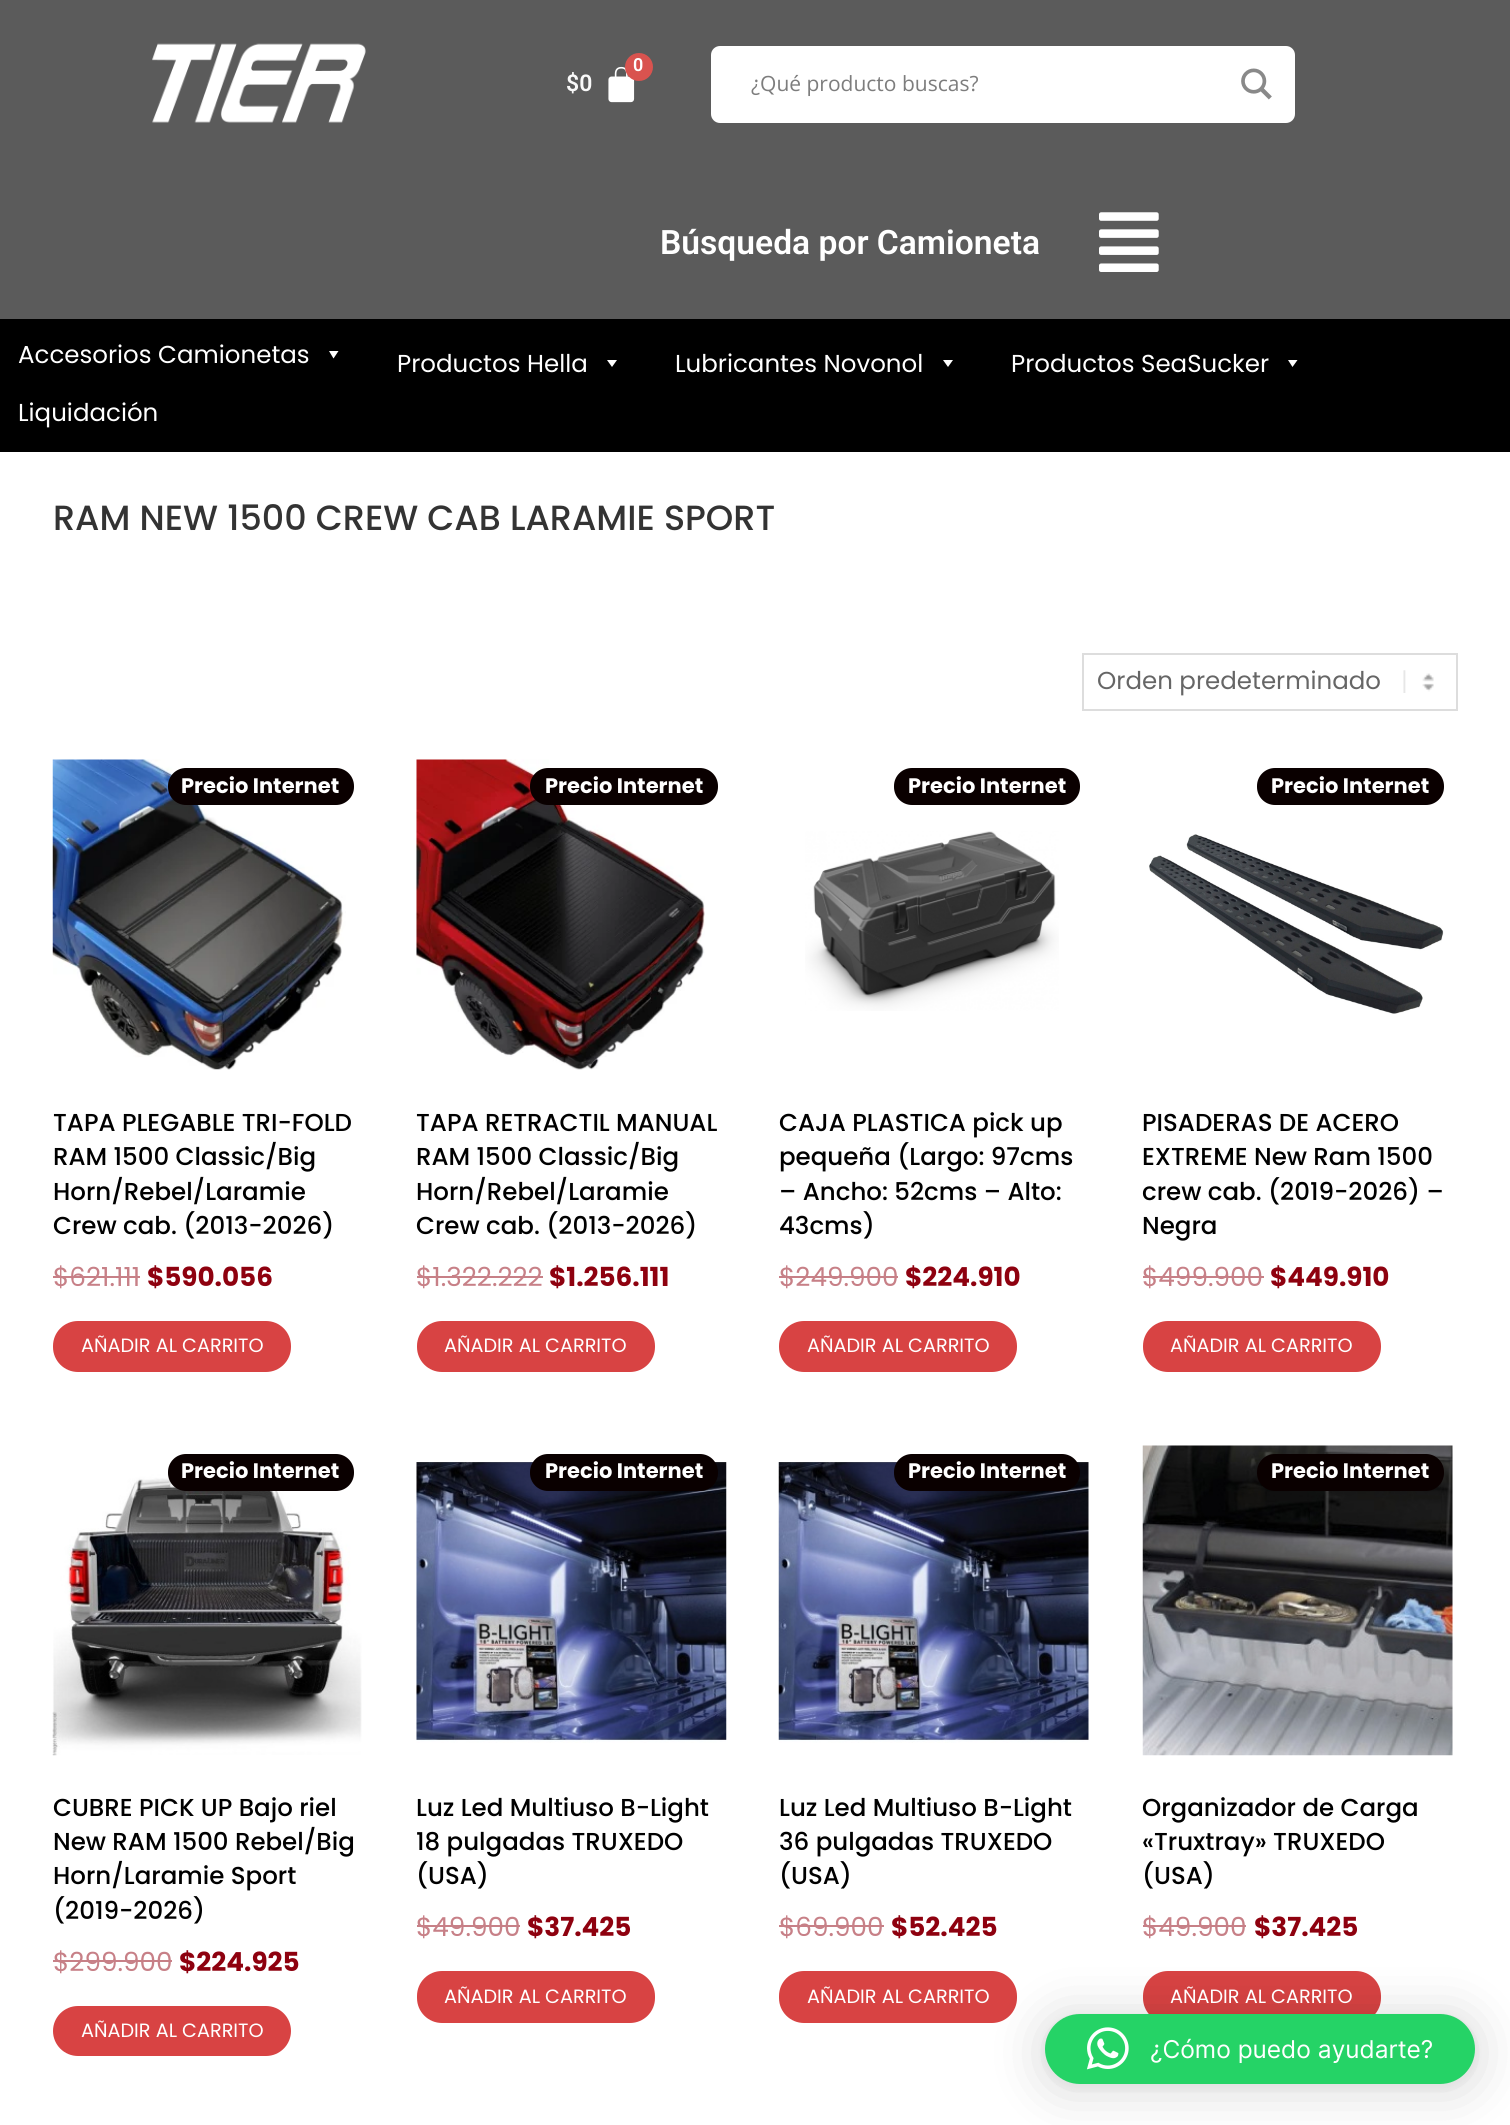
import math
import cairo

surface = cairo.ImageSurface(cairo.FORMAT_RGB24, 1510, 2125)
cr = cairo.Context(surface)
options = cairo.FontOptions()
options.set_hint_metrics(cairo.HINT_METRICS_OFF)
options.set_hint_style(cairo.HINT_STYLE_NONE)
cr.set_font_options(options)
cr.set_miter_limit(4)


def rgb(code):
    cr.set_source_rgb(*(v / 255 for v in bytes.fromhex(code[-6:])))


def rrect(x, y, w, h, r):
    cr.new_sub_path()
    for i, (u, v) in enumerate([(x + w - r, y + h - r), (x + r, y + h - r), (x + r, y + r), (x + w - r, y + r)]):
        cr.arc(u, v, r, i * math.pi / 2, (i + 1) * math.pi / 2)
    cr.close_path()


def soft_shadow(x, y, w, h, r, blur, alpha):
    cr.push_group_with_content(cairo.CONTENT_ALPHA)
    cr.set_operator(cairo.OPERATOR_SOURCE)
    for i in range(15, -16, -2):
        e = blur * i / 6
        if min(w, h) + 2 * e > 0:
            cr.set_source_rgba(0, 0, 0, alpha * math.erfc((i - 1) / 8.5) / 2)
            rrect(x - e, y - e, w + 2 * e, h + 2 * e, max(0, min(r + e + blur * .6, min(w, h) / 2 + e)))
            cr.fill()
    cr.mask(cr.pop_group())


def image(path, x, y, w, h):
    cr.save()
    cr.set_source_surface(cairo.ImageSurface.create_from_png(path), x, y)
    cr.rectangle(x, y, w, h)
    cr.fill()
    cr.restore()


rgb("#ffffff")
cr.paint()
rgb("#5b5b5b")
cr.rectangle(0, 0, 1510, 319)
cr.fill()
image("img/1.png", 152, 43, 214, 80)
image("img/2.png", 608, 66, 27, 37)
rgb("#d9534f")
cr.arc(639, 67, 14, 0, 2 * math.pi)
cr.fill()
rgb("#ffffff")
rrect(711, 46, 584, 77, 9)
cr.fill()
image("img/3.png", 1241, 68, 31, 32)
image("img/4.png", 1099, 212, 60, 60)
rgb("#000000")
cr.rectangle(0, 319, 1510, 133)
cr.fill()
rgb("#ffffff")
cr.new_path()
cr.move_to(338.5, 351)
cr.line_to(333.5, 358.5)
cr.line_to(329, 351)
cr.close_path()
cr.fill()
cr.new_path()
cr.move_to(617, 360)
cr.line_to(612, 367)
cr.line_to(607, 360)
cr.close_path()
cr.fill()
cr.new_path()
cr.move_to(953, 360)
cr.line_to(948, 367)
cr.line_to(943, 360)
cr.close_path()
cr.fill()
cr.new_path()
cr.move_to(1297.5, 360)
cr.line_to(1292.5, 367)
cr.line_to(1288, 360)
cr.close_path()
cr.fill()
image("img/5.png", 1403, 670, 31, 23)
cr.rectangle(1083, 654, 374, 56)
rgb("#dddddd")
cr.stroke()
image("img/6.png", 52, 759, 294, 311)
rgb("#0a0000")
rrect(168, 768, 186, 37, 18)
cr.fill()
rgb("#c78087")
cr.rectangle(53, 1276, 87, 2)
cr.fill()
rgb("#d84343")
rrect(53, 1321, 238, 51, 25)
cr.fill()
image("img/7.png", 416, 759, 289, 311)
rgb("#0a0000")
rrect(530, 768, 188, 37, 18)
cr.fill()
rgb("#c78087")
cr.rectangle(417, 1276, 126, 2)
cr.fill()
rgb("#d84343")
rrect(417, 1321, 238, 51, 25)
cr.fill()
rgb("#0a0000")
rrect(894, 768, 186, 37, 18)
cr.fill()
image("img/8.png", 805, 831, 254, 180)
rgb("#c78087")
cr.rectangle(779, 1276, 119, 2)
cr.fill()
rgb("#d84343")
rrect(779, 1321, 238, 51, 25)
cr.fill()
rgb("#0a0000")
rrect(1257, 768, 187, 37, 18)
cr.fill()
image("img/9.png", 1149, 834, 295, 180)
rgb("#c78087")
cr.rectangle(1143, 1276, 121, 2)
cr.fill()
rgb("#d84343")
rrect(1143, 1321, 238, 51, 25)
cr.fill()
image("img/10.png", 52, 1470, 310, 286)
rgb("#0a0000")
rrect(168, 1454, 186, 37, 18)
cr.fill()
rgb("#c78087")
cr.rectangle(53, 1960, 119, 2)
cr.fill()
rgb("#d84343")
rrect(53, 2006, 238, 50, 25)
cr.fill()
image("img/11.png", 416, 1462, 311, 281)
rgb("#0a0000")
rrect(530, 1454, 188, 37, 18)
cr.fill()
rgb("#c78087")
cr.rectangle(417, 1925, 103, 2)
cr.fill()
rgb("#d84343")
rrect(417, 1971, 238, 52, 25)
cr.fill()
image("img/12.png", 778, 1462, 311, 281)
rgb("#0a0000")
rrect(894, 1454, 186, 37, 18)
cr.fill()
rgb("#c78087")
cr.rectangle(779, 1925, 105, 2)
cr.fill()
rgb("#d84343")
rrect(779, 1971, 238, 52, 25)
cr.fill()
image("img/13.png", 1142, 1445, 311, 311)
rgb("#0a0000")
rrect(1257, 1454, 187, 37, 18)
cr.fill()
rgb("#c78087")
cr.rectangle(1143, 1925, 103, 2)
cr.fill()
rgb("#d84343")
rrect(1143, 1971, 238, 52, 25)
cr.fill()
rgb("#000000")
soft_shadow(1045, 2018, 430, 70, 35, 28, 0.16)
soft_shadow(1045, 2016, 430, 70, 35, 5, 0.06)
rgb("#25d366")
rrect(1045, 2014, 430, 70, 35)
cr.fill()
image("img/14.png", 1086, 2027, 43, 43)
cr.select_font_face("Roboto SemiBold")
cr.set_font_size(18)
rgb("#ffffff")
cr.move_to(633, 71)
cr.show_text("0")
cr.set_font_size(23)
rgb("#f9f9f9")
cr.move_to(566, 91)
cr.show_text("$0")
cr.select_font_face("Open Sans")
cr.set_font_size(21)
rgb("#7d7d7d")
cr.move_to(751, 91)
cr.show_text("¿Qué producto buscas?")
cr.select_font_face("Roboto SemiBold")
cr.set_font_size(33.6)
rgb("#ffffff")
cr.move_to(660, 254)
cr.show_text("Búsqueda por Camioneta")
cr.select_font_face("Poppins")
cr.set_font_size(24.5)
for x, y, s in [
    (18, 363, "Accesorios Camionetas"),
    (397, 372, "Productos Hella"),
    (675, 372, "Lubricantes Novonol"),
    (1011, 372, "Productos SeaSucker"),
    (18, 421, "Liquidación"),
]:
    cr.move_to(x, y)
    cr.show_text(s)
cr.select_font_face("Poppins Medium")
cr.set_font_size(35)
rgb("#333333")
cr.move_to(53, 530)
cr.show_text("RAM NEW 1500 CREW CAB LARAMIE SPORT")
cr.select_font_face("Poppins")
cr.set_font_size(24.5)
rgb("#666666")
cr.move_to(1097, 689)
cr.show_text("Orden predeterminado")
cr.select_font_face("Poppins", cairo.FONT_SLANT_NORMAL, cairo.FONT_WEIGHT_BOLD)
cr.set_font_size(21)
rgb("#ffffff")
cr.move_to(181, 793)
cr.show_text("Precio Internet")
cr.select_font_face("Poppins Medium")
cr.set_font_size(24.5)
rgb("#000000")
for x, y, s in [
    (53, 1131, "TAPA PLEGABLE TRI-FOLD"),
    (53, 1165, "RAM 1500 Classic/Big"),
    (53, 1200, "Horn/Rebel/Laramie"),
    (53, 1234, "Crew cab. (2013-2026)"),
]:
    cr.move_to(x, y)
    cr.show_text(s)
cr.select_font_face("Poppins")
cr.set_font_size(26.25)
rgb("#c78087")
cr.move_to(53, 1286)
cr.show_text("$621.111")
cr.select_font_face("Poppins", cairo.FONT_SLANT_NORMAL, cairo.FONT_WEIGHT_BOLD)
rgb("#8e010f")
cr.move_to(147, 1286)
cr.show_text("$590.056")
cr.select_font_face("Poppins")
cr.set_font_size(19.25)
rgb("#ffffff")
cr.move_to(81, 1352)
cr.show_text("AÑADIR AL CARRITO")
cr.select_font_face("Poppins", cairo.FONT_SLANT_NORMAL, cairo.FONT_WEIGHT_BOLD)
cr.set_font_size(21)
cr.move_to(545, 793)
cr.show_text("Precio Internet")
cr.select_font_face("Poppins Medium")
cr.set_font_size(24.5)
rgb("#000000")
for x, y, s in [
    (416, 1131, "TAPA RETRACTIL MANUAL"),
    (416, 1165, "RAM 1500 Classic/Big"),
    (416, 1200, "Horn/Rebel/Laramie"),
    (416, 1234, "Crew cab. (2013-2026)"),
]:
    cr.move_to(x, y)
    cr.show_text(s)
cr.select_font_face("Poppins")
cr.set_font_size(26.25)
rgb("#c78087")
cr.move_to(416, 1286)
cr.show_text("$1.322.222")
cr.select_font_face("Poppins", cairo.FONT_SLANT_NORMAL, cairo.FONT_WEIGHT_BOLD)
rgb("#8e010f")
cr.move_to(549, 1286)
cr.show_text("$1.256.111")
cr.select_font_face("Poppins")
cr.set_font_size(19.25)
rgb("#ffffff")
cr.move_to(444, 1352)
cr.show_text("AÑADIR AL CARRITO")
cr.select_font_face("Poppins", cairo.FONT_SLANT_NORMAL, cairo.FONT_WEIGHT_BOLD)
cr.set_font_size(21)
cr.move_to(908, 793)
cr.show_text("Precio Internet")
cr.select_font_face("Poppins Medium")
cr.set_font_size(24.5)
rgb("#000000")
for x, y, s in [
    (779, 1131, "CAJA PLASTICA pick up"),
    (779, 1165, "pequeña (Largo: 97cms"),
    (779, 1200, "– Ancho: 52cms – Alto:"),
    (779, 1234, "43cms)"),
]:
    cr.move_to(x, y)
    cr.show_text(s)
cr.select_font_face("Poppins")
cr.set_font_size(26.25)
rgb("#c78087")
cr.move_to(779, 1286)
cr.show_text("$249.900")
cr.select_font_face("Poppins", cairo.FONT_SLANT_NORMAL, cairo.FONT_WEIGHT_BOLD)
rgb("#8e010f")
cr.move_to(905, 1286)
cr.show_text("$224.910")
cr.select_font_face("Poppins")
cr.set_font_size(19.25)
rgb("#ffffff")
cr.move_to(807, 1352)
cr.show_text("AÑADIR AL CARRITO")
cr.select_font_face("Poppins", cairo.FONT_SLANT_NORMAL, cairo.FONT_WEIGHT_BOLD)
cr.set_font_size(21)
cr.move_to(1271, 793)
cr.show_text("Precio Internet")
cr.select_font_face("Poppins Medium")
cr.set_font_size(24.5)
rgb("#000000")
for x, y, s in [
    (1142, 1131, "PISADERAS DE ACERO"),
    (1142, 1165, "EXTREME New Ram 1500"),
    (1142, 1200, "crew cab. (2019-2026) –"),
    (1142, 1234, "Negra"),
]:
    cr.move_to(x, y)
    cr.show_text(s)
cr.select_font_face("Poppins")
cr.set_font_size(26.25)
rgb("#c78087")
cr.move_to(1142, 1286)
cr.show_text("$499.900")
cr.select_font_face("Poppins", cairo.FONT_SLANT_NORMAL, cairo.FONT_WEIGHT_BOLD)
rgb("#8e010f")
cr.move_to(1270, 1286)
cr.show_text("$449.910")
cr.select_font_face("Poppins")
cr.set_font_size(19.25)
rgb("#ffffff")
cr.move_to(1170, 1352)
cr.show_text("AÑADIR AL CARRITO")
cr.select_font_face("Poppins", cairo.FONT_SLANT_NORMAL, cairo.FONT_WEIGHT_BOLD)
cr.set_font_size(21)
cr.move_to(181, 1478)
cr.show_text("Precio Internet")
cr.select_font_face("Poppins Medium")
cr.set_font_size(24.5)
rgb("#000000")
for x, y, s in [
    (53, 1816, "CUBRE PICK UP Bajo riel"),
    (53, 1850, "New RAM 1500 Rebel/Big"),
    (53, 1884, "Horn/Laramie Sport"),
    (53, 1919, "(2019-2026)"),
]:
    cr.move_to(x, y)
    cr.show_text(s)
cr.select_font_face("Poppins")
cr.set_font_size(26.25)
rgb("#c78087")
cr.move_to(53, 1971)
cr.show_text("$299.900")
cr.select_font_face("Poppins", cairo.FONT_SLANT_NORMAL, cairo.FONT_WEIGHT_BOLD)
rgb("#8e010f")
cr.move_to(179, 1971)
cr.show_text("$224.925")
cr.select_font_face("Poppins")
cr.set_font_size(19.25)
rgb("#ffffff")
cr.move_to(81, 2037)
cr.show_text("AÑADIR AL CARRITO")
cr.select_font_face("Poppins", cairo.FONT_SLANT_NORMAL, cairo.FONT_WEIGHT_BOLD)
cr.set_font_size(21)
cr.move_to(545, 1478)
cr.show_text("Precio Internet")
cr.select_font_face("Poppins Medium")
cr.set_font_size(24.5)
rgb("#000000")
for x, y, s in [
    (416, 1816, "Luz Led Multiuso B-Light"),
    (416, 1850, "18 pulgadas TRUXEDO"),
    (416, 1884, "(USA)"),
]:
    cr.move_to(x, y)
    cr.show_text(s)
cr.select_font_face("Poppins")
cr.set_font_size(26.25)
rgb("#c78087")
cr.move_to(416, 1936)
cr.show_text("$49.900")
cr.select_font_face("Poppins", cairo.FONT_SLANT_NORMAL, cairo.FONT_WEIGHT_BOLD)
rgb("#8e010f")
cr.move_to(527, 1936)
cr.show_text("$37.425")
cr.select_font_face("Poppins")
cr.set_font_size(19.25)
rgb("#ffffff")
cr.move_to(444, 2003)
cr.show_text("AÑADIR AL CARRITO")
cr.select_font_face("Poppins", cairo.FONT_SLANT_NORMAL, cairo.FONT_WEIGHT_BOLD)
cr.set_font_size(21)
cr.move_to(908, 1478)
cr.show_text("Precio Internet")
cr.select_font_face("Poppins Medium")
cr.set_font_size(24.5)
rgb("#000000")
for x, y, s in [
    (779, 1816, "Luz Led Multiuso B-Light"),
    (779, 1850, "36 pulgadas TRUXEDO"),
    (779, 1884, "(USA)"),
]:
    cr.move_to(x, y)
    cr.show_text(s)
cr.select_font_face("Poppins")
cr.set_font_size(26.25)
rgb("#c78087")
cr.move_to(779, 1936)
cr.show_text("$69.900")
cr.select_font_face("Poppins", cairo.FONT_SLANT_NORMAL, cairo.FONT_WEIGHT_BOLD)
rgb("#8e010f")
cr.move_to(891, 1936)
cr.show_text("$52.425")
cr.select_font_face("Poppins")
cr.set_font_size(19.25)
rgb("#ffffff")
cr.move_to(807, 2003)
cr.show_text("AÑADIR AL CARRITO")
cr.select_font_face("Poppins", cairo.FONT_SLANT_NORMAL, cairo.FONT_WEIGHT_BOLD)
cr.set_font_size(21)
cr.move_to(1271, 1478)
cr.show_text("Precio Internet")
cr.select_font_face("Poppins Medium")
cr.set_font_size(24.5)
rgb("#000000")
for x, y, s in [
    (1142, 1816, "Organizador de Carga"),
    (1142, 1850, "«Truxtray» TRUXEDO"),
    (1142, 1884, "(USA)"),
]:
    cr.move_to(x, y)
    cr.show_text(s)
cr.select_font_face("Poppins")
cr.set_font_size(26.25)
rgb("#c78087")
cr.move_to(1142, 1936)
cr.show_text("$49.900")
cr.select_font_face("Poppins", cairo.FONT_SLANT_NORMAL, cairo.FONT_WEIGHT_BOLD)
rgb("#8e010f")
cr.move_to(1254, 1936)
cr.show_text("$37.425")
cr.select_font_face("Poppins")
cr.set_font_size(19.25)
rgb("#ffffff")
cr.move_to(1170, 2003)
cr.show_text("AÑADIR AL CARRITO")
cr.select_font_face("Inter")
cr.set_font_size(24.5)
cr.move_to(1150, 2058)
cr.show_text("¿Cómo puedo ayudarte?")
surface.write_to_png("page.png")
